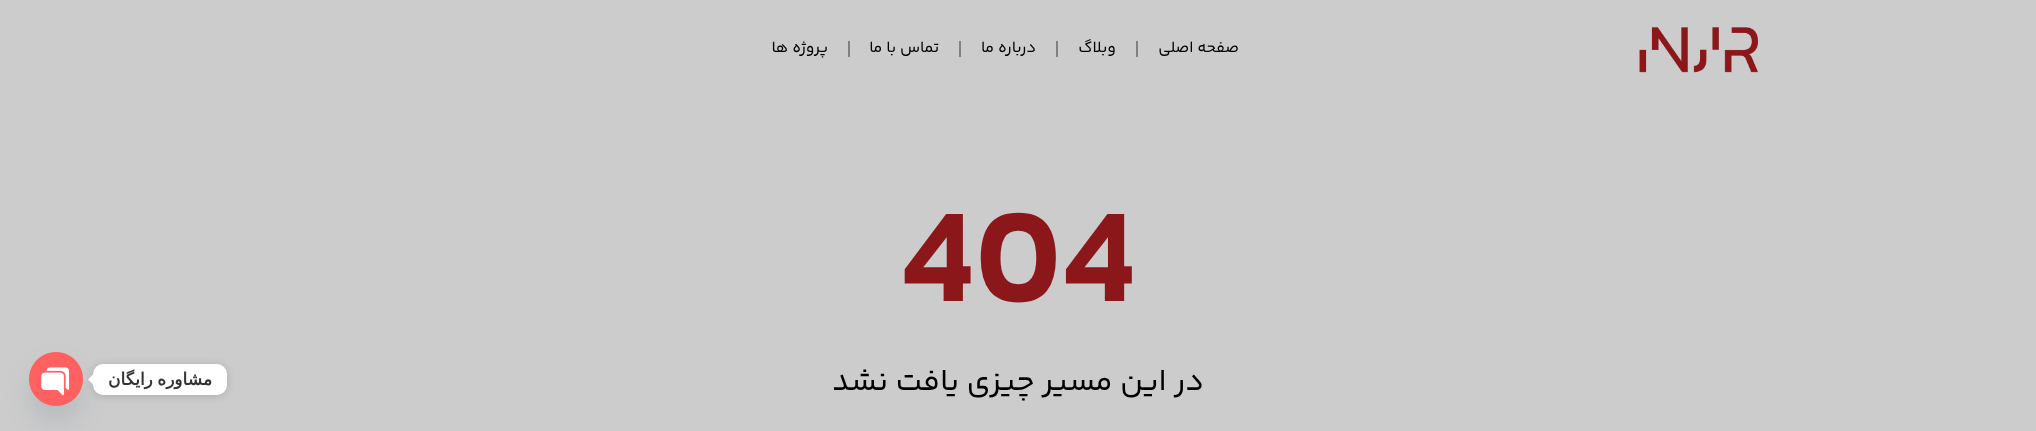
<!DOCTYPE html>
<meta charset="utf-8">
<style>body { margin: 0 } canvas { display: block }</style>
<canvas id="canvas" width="2036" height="431"></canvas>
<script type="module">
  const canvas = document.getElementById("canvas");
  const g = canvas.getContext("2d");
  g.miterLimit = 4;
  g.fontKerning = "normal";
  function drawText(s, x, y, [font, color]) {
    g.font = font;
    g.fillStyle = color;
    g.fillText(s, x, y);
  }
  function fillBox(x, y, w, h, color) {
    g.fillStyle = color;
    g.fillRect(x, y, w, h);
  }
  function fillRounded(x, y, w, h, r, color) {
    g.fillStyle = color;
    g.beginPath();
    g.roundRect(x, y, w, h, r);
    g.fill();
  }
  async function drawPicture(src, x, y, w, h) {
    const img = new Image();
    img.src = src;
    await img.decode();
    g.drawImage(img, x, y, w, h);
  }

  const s1 = ["16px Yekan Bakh", "#000000"];
  const s2 = ["bold 142px Yekan Bakh", "#8B171A"];
  const s3 = ["31px Yekan Bakh", "#000000"];
  const s4 = ["bold 17px DejaVu Sans", "#333333"];

  fillBox(0, 0, 2036, 431, "#CCCCCC");
  await drawPicture("pic1.png", 1639, 27, 119, 46);
  g.direction = "rtl";
  drawText("صفحه اصلی", 1239, 52, s1);
  fillBox(1136, 41, 2, 16, "#808080");
  drawText("وبلاگ", 1116, 52, s1);
  fillBox(1056, 41, 2, 16, "#808080");
  drawText("درباره ما", 1036, 52, s1);
  fillBox(959, 41, 2, 16, "#808080");
  drawText("تماس با ما", 939, 52, s1);
  fillBox(848, 41, 2, 16, "#808080");
  drawText("پروژه ها", 828, 52, s1);
  g.direction = "ltr";
  drawText("404", 901, 301, s2);
  g.direction = "rtl";
  drawText("در این مسیر چیزی یافت نشد", 1204, 390, s3);
  g.fillStyle = "rgba(0, 0, 0, 0.15)";
  g.filter = "blur(4px)";
  g.beginPath();
  g.roundRect(93, 365, 134, 31, 10);
  g.fill();
  g.filter = "none";
  fillRounded(93, 364, 134, 31, 10, "#FFFFFF");
  g.wordSpacing = "-1px";
  drawText("مشاوره رایگان", 212, 385, s4);
  g.fillStyle = "#FFFFFF";
  g.beginPath();
  g.moveTo(93, 374.5);
  g.lineTo(93, 384.5);
  g.lineTo(88, 379.5);
  g.closePath();
  g.fill();
  g.fillStyle = "rgba(73, 104, 126, 0.16)";
  g.filter = "blur(12px)";
  g.beginPath();
  g.roundRect(29, 368, 54, 54, 27);
  g.fill();
  g.filter = "none";
  await drawPicture("pic2.png", 29, 352, 54, 54);
</script>
